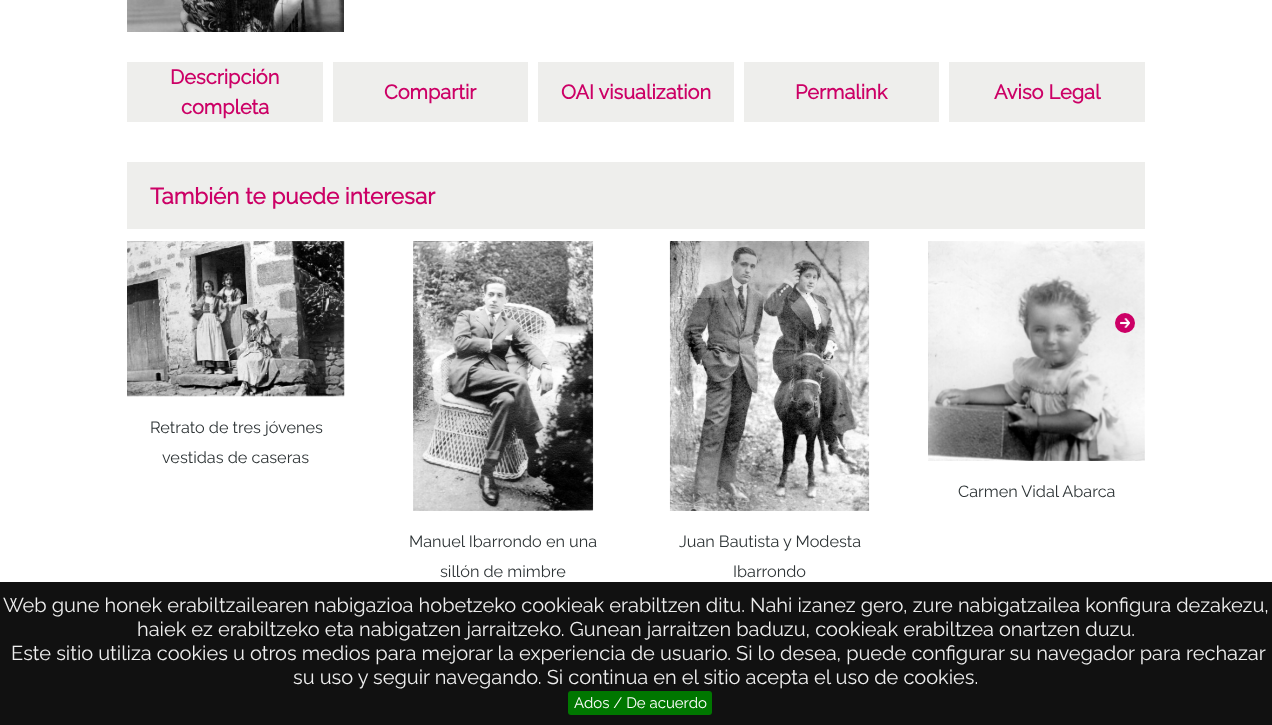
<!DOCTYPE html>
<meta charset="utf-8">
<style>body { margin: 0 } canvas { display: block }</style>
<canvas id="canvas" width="1272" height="725"></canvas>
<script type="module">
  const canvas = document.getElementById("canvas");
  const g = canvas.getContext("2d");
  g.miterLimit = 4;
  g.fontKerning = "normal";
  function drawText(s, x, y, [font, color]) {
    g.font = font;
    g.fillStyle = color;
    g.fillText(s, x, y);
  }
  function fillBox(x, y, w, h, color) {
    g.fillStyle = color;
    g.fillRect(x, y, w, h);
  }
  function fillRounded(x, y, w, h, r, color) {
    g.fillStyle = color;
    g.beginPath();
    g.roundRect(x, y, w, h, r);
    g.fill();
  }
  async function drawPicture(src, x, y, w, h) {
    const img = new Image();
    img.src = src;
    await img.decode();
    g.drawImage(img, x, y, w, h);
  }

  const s1 = ["bold 20px Raleway", "#CC0066"];
  const s2 = ["bold 22.5px Raleway", "#CC0066"];
  const s3 = ["100 16.25px Raleway", "#2E3436"];
  const s4 = ["100 20px Raleway", "#EEEEEE"];
  const s5 = ["100 15px Raleway", "#FFFFFF"];

  fillBox(0, 0, 1272, 725, "#FFFFFF");
  await drawPicture("pic1.png", 127, 0, 217, 32);
  fillBox(127, 62, 196, 60, "#EEEEEC");
  drawText("Descripción", 170, 84, s1);
  drawText("completa", 181, 114, s1);
  fillBox(333, 62, 195, 60, "#EEEEEC");
  drawText("Compartir", 384, 99, s1);
  fillBox(538, 62, 196, 60, "#EEEEEC");
  drawText("OAI visualization", 561, 99, s1);
  fillBox(744, 62, 195, 60, "#EEEEEC");
  drawText("Permalink", 795, 99, s1);
  fillBox(949, 62, 196, 60, "#EEEEEC");
  drawText("Aviso Legal", 994, 99, s1);
  fillBox(127, 162, 1018, 67, "#EEEEEC");
  drawText("También te puede interesar", 150, 204, s2);
  await drawPicture("pic4.png", 928, 241, 217, 220);
  g.beginPath();
  g.arc(1125, 323, 10, 0, Math.PI * 2);
  g.fill();
  await drawPicture("pic2.png", 1120, 318, 10, 10);
  await drawPicture("pic3.png", 127, 241, 218, 156);
  drawText("Retrato de tres jóvenes", 150, 433, s3);
  drawText("vestidas de caseras", 162, 463, s3);
  drawText("Carmen Vidal Abarca", 958, 497, s3);
  await drawPicture("pic5.png", 413, 241, 181, 270);
  drawText("Manuel Ibarrondo en una", 409, 547, s3);
  drawText("sillón de mimbre", 440, 577, s3);
  await drawPicture("pic6.png", 669, 241, 201, 270);
  drawText("Juan Bautista y Modesta", 679, 547, s3);
  drawText("Ibarrondo", 733, 577, s3);
  fillBox(0, 582, 1272, 143, "#111111");
  drawText("Web gune honek erabiltzailearen nabigazioa hobetzeko cookieak erabiltzen ditu. Nahi izanez gero, zure nabigatzailea konfigura dezakezu,", 3, 612, s4);
  drawText("haiek ez erabiltzeko eta nabigatzen jarraitzeko. Gunean jarraitzen baduzu, cookieak erabiltzea onartzen duzu.", 137, 636, s4);
  drawText("Este sitio utiliza cookies u otros medios para mejorar la experiencia de usuario. Si lo desea, puede configurar su navegador para rechazar", 11, 660, s4);
  drawText("su uso y seguir navegando. Si continua en el sitio acepta el uso de cookies.", 293, 684, s4);
  fillRounded(568, 691, 144, 24, 3, "#007700");
  drawText("Ados / De acuerdo", 574, 708, s5);
</script>
